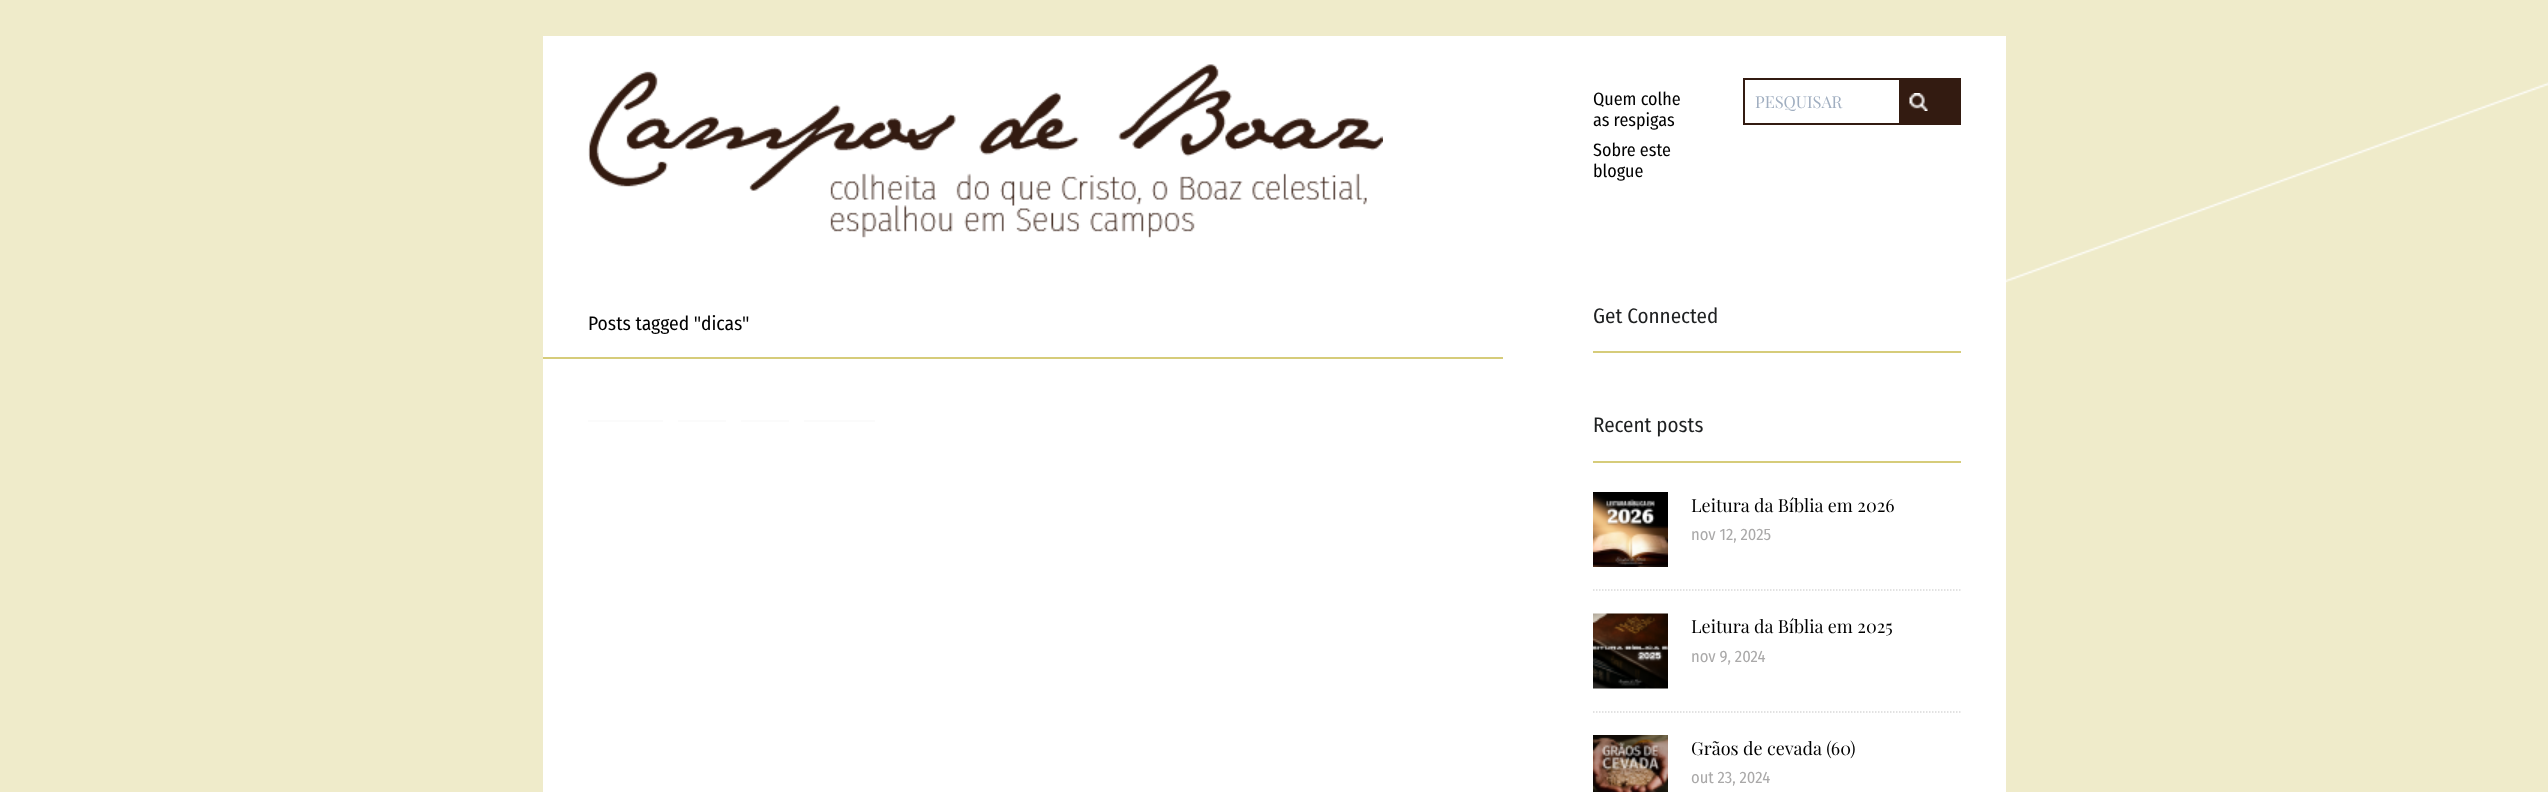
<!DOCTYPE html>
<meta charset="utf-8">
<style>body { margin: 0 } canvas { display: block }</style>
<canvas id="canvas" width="2548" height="792"></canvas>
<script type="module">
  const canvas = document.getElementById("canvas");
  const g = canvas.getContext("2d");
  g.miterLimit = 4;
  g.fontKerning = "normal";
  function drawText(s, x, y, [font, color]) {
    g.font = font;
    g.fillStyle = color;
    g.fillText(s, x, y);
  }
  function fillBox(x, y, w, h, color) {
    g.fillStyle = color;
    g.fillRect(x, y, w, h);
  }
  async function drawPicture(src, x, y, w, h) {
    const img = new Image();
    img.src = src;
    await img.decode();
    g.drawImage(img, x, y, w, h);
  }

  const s1 = ["18px Fira Sans Condensed", "#000000"];
  const s2 = ["16.5px Playfair Display", "#A0AEC0"];
  const s3 = ["19.5px Fira Sans Condensed", "#000000"];
  const s4 = ["21px Fira Sans Condensed", "#1F2122"];
  const s5 = ["18px Playfair Display", "#000000"];
  const s6 = ["16.5px Fira Sans Condensed", "#AAA9A9"];

  fillBox(0, 0, 2548, 792, "#EFEBCA");
  await drawPicture("pic1.png", 2006, 82, 542, 201);
  fillBox(543, 36, 1463, 756, "#FFFFFF");
  await drawPicture("pic2.png", 588, 64, 795, 174);
  drawText("Quem colhe", 1593, 105, s1);
  drawText("as respigas", 1593, 126, s1);
  drawText("Sobre este", 1593, 156, s1);
  drawText("blogue", 1593, 177, s1);
  fillBox(1901, 78, 60, 47, "#331B11");
  g.strokeStyle = "#331B11";
  g.lineWidth = 2;
  g.strokeRect(1744, 79, 156, 45);
  drawText("PESQUISAR", 1755, 108, s2);
  await drawPicture("pic3.png", 1909, 93, 19, 18);
  fillBox(543, 357, 960, 2, "#D6CC7A");
  drawText("Posts tagged \"dicas\"", 588, 330, s3);
  fillBox(588, 420, 75, 2, "#FBFBFB");
  fillBox(678, 420, 48, 2, "#FBFBFB");
  fillBox(741, 420, 48, 2, "#FBFBFB");
  fillBox(804, 420, 71, 2, "#FBFBFB");
  fillBox(1593, 351, 368, 2, "#D6CC7A");
  drawText("Get Connected", 1593, 323, s4);
  fillBox(1593, 461, 368, 2, "#D6CC7A");
  drawText("Recent posts", 1593, 432, s4);
  g.beginPath();
  g.moveTo(1593, 590);
  g.lineTo(1960.5, 590);
  g.strokeStyle = "#D9D9D9";
  g.lineWidth = 1.5;
  g.setLineDash([1.5, 1.5]);
  g.stroke();
  await drawPicture("pic4.png", 1593, 492, 75, 75);
  drawText("Leitura da Bíblia em 2026", 1691, 512, s5);
  drawText("nov 12, 2025", 1691, 540, s6);
  g.beginPath();
  g.moveTo(1593, 712);
  g.lineTo(1960.5, 712);
  g.stroke();
  await drawPicture("pic5.png", 1593, 613, 75, 76);
  drawText("Leitura da Bíblia em 2025", 1691, 633, s5);
  drawText("nov 9, 2024", 1691, 662, s6);
  await drawPicture("pic6.png", 1593, 735, 75, 57);
  drawText("Grãos de cevada (60)", 1691, 755, s5);
  drawText("out 23, 2024", 1691, 783, s6);
</script>
